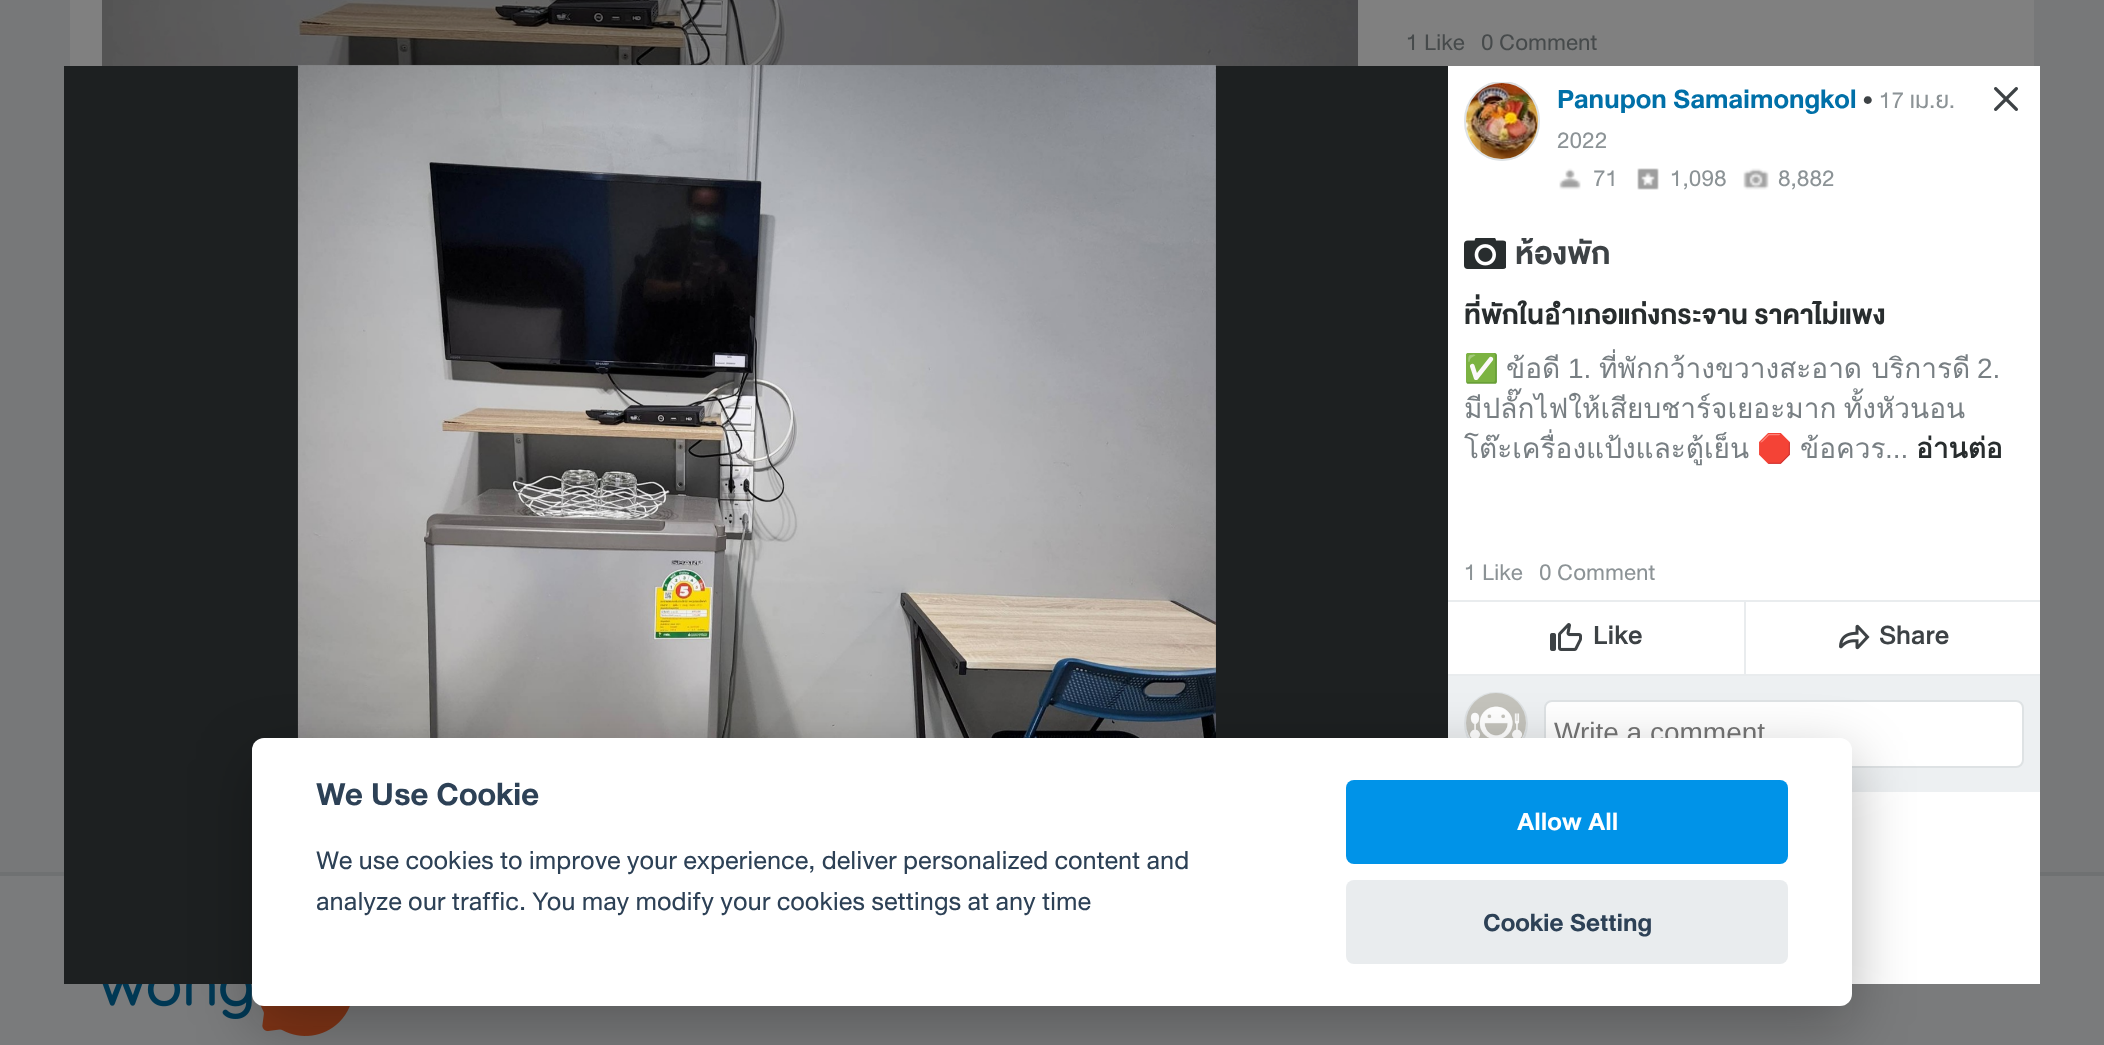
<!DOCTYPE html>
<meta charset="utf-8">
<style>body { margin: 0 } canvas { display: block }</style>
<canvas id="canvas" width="2104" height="1045"></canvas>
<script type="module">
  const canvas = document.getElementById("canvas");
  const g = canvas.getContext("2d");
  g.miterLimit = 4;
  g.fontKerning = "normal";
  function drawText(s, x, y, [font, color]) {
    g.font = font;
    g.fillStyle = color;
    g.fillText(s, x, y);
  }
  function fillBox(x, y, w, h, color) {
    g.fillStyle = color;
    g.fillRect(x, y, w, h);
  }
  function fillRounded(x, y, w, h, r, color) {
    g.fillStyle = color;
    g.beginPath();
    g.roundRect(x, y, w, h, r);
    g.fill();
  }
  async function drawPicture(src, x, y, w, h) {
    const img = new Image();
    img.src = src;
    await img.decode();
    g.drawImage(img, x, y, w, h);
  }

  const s1 = ["24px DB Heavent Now", "#464A4B"];
  const s2 = ["bold 28px DB Heavent Now", "#0070A8"];
  const s3 = ["28px DB Heavent Now", "#3D4245"];
  const s4 = ["24px DB Heavent Now", "#8C9396"];
  const s5 = ["bold 32px DB Heavent Now", "#3D4245"];
  const s6 = ["bold 28px DB Heavent Now", "#282D2E"];
  const s7 = ["28px Noto Color Emoji", "#787F83"];
  const s8 = ["28px Loma", "#787F83"];
  const s9 = ["28px Liberation Sans", "#787F83"];
  const s10 = ["bold 28px Loma", "#282D2E"];
  const s11 = ["500 28px DB Heavent Now", "#3D4245"];
  const s12 = ["28px Liberation Sans", "#757575"];
  const s13 = ["bold 33.5px DB Heavent Now", "#2D4156"];
  const s14 = ["27.2px DB Heavent Now", "#2D4156"];
  const s15 = ["bold 26.25px DB Heavent Now", "#FFFFFF"];
  const s16 = ["bold 26.25px DB Heavent Now", "#2D4156"];

  fillBox(0, 0, 2104, 1045, "#7A7B7C");
  fillBox(0, 0, 2104, 872, "#777879");
  fillBox(70, 0, 1964, 66, "#808080");
  await drawPicture("pic1.png", 102, 0, 1256, 66);
  drawText("1 Like", 1406, 50, s1);
  drawText("0 Comment", 1481, 50, s1);
  fillBox(0, 872, 2104, 4, "#6F7172");
  await drawPicture("pic2.png", 102, 984, 248, 52);
  fillBox(1448, 66, 592, 918, "#FFFFFF");
  fillBox(64, 66, 1384, 918, "#1D2021");
  await drawPicture("pic3.png", 297, 64, 919, 674);
  g.save();
  g.beginPath();
  g.rect(1464, 82, 76, 80);
  g.clip();
  g.fillStyle = "#EDF0F2";
  g.beginPath();
  g.ellipse(1502, 121, 38, 40, 0, 0, Math.PI * 2);
  g.fill();
  g.beginPath();
  g.moveTo(1502, 82);
  g.bezierCurveTo(1522.5, 82, 1539, 99.5, 1539, 121);
  g.bezierCurveTo(1539, 142.5, 1522.5, 160, 1502, 160);
  g.bezierCurveTo(1481.5, 160, 1465, 142.5, 1465, 121);
  g.bezierCurveTo(1465, 99.5, 1481.5, 82, 1502, 82);
  g.closePath();
  g.strokeStyle = "#DEE2E4";
  g.lineWidth = 2;
  g.stroke();
  g.restore();
  await drawPicture("pic4.png", 1466, 83, 72, 76);
  drawText("Panupon Samaimongkol", 1557, 108, s2);
  drawText("•", 1863, 108, s3);
  drawText("17 เม.ย.", 1879, 108, s4);
  drawText("2022", 1557, 148, s4);
  await drawPicture("pic5.png", 1559, 168, 22, 22);
  drawText("71", 1593, 186, s4);
  await drawPicture("pic6.png", 1637, 168, 22, 22);
  drawText("1,098", 1670, 186, s4);
  await drawPicture("pic7.png", 1743, 168, 26, 22);
  drawText("8,882", 1778, 186, s4);
  drawText("ห้องพัก", 1515, 264, s5);
  await drawPicture("pic8.png", 1464, 238, 42, 31);
  drawText("ที่พักในอำเภอแก่งกระจาน ราคาไม่แพง", 1464, 324, s6);
  drawText("✅", 1464, 378, s7);
  drawText("ข้อดี", 1506, 378, s8);
  drawText("1.", 1568, 378, s9);
  drawText("ที่พักกว้างขวางสะอาด บริการดี", 1599, 378, s8);
  drawText("2.", 1977, 378, s9);
  g.wordSpacing = "-2px";
  drawText("มีปลั๊กไฟให้เสียบชาร์จเยอะมาก ทั้งหัวนอน", 1464, 418, s8);
  g.wordSpacing = "0px";
  drawText("โต๊ะเครื่องแป้งและตู้เย็น", 1464, 458, s8);
  drawText("🛑", 1757, 458, s7);
  drawText("ข้อควร", 1800, 458, s8);
  drawText("...", 1885, 458, s9);
  drawText("อ่านต่อ", 1916, 458, s10);
  drawText("1 Like", 1464, 580, s4);
  drawText("0 Comment", 1539, 580, s4);
  fillBox(1448, 600, 592, 76, "#E9ECEE");
  fillBox(1448, 602, 296, 72, "#FFFFFF");
  await drawPicture("pic9.png", 1550, 623, 32, 28);
  drawText("Like", 1593, 644, s11);
  fillBox(1746, 602, 294, 72, "#FFFFFF");
  await drawPicture("pic10.png", 1839, 624, 31, 26);
  drawText("Share", 1879, 644, s11);
  fillBox(1448, 676, 592, 116, "#EDF0F2");
  g.beginPath();
  g.arc(1496, 724, 31, 0, Math.PI * 2);
  g.strokeStyle = "#DEE2E4";
  g.lineWidth = 2;
  g.stroke();
  await drawPicture("pic11.png", 1466, 693, 60, 45);
  g.fillStyle = "#FFFFFF";
  g.beginPath();
  g.roundRect(1545, 701, 478, 66, 7);
  g.fill();
  g.stroke();
  drawText("Write a comment", 1554, 742, s12);
  await drawPicture("pic12.png", 1994, 87, 24, 24);
  g.fillStyle = "rgba(2, 2, 3, 0.28)";
  g.filter = "blur(30px)";
  g.beginPath();
  g.roundRect(252, 758, 1600, 268, 12);
  g.fill();
  g.filter = "none";
  fillRounded(252, 738, 1600, 268, 12, "#FFFFFF");
  drawText("We Use Cookie", 316, 805, s13);
  drawText("We use cookies to improve your experience, deliver personalized content and", 316, 869, s14);
  drawText("analyze our traffic. You may modify your cookies settings at any time", 316, 910, s14);
  fillRounded(1346, 780, 442, 84, 8, "#0093E8");
  drawText("Allow All", 1517, 830, s15);
  fillRounded(1346, 880, 442, 84, 8, "#E9ECEE");
  drawText("Cookie Setting", 1483, 931, s16);
</script>
